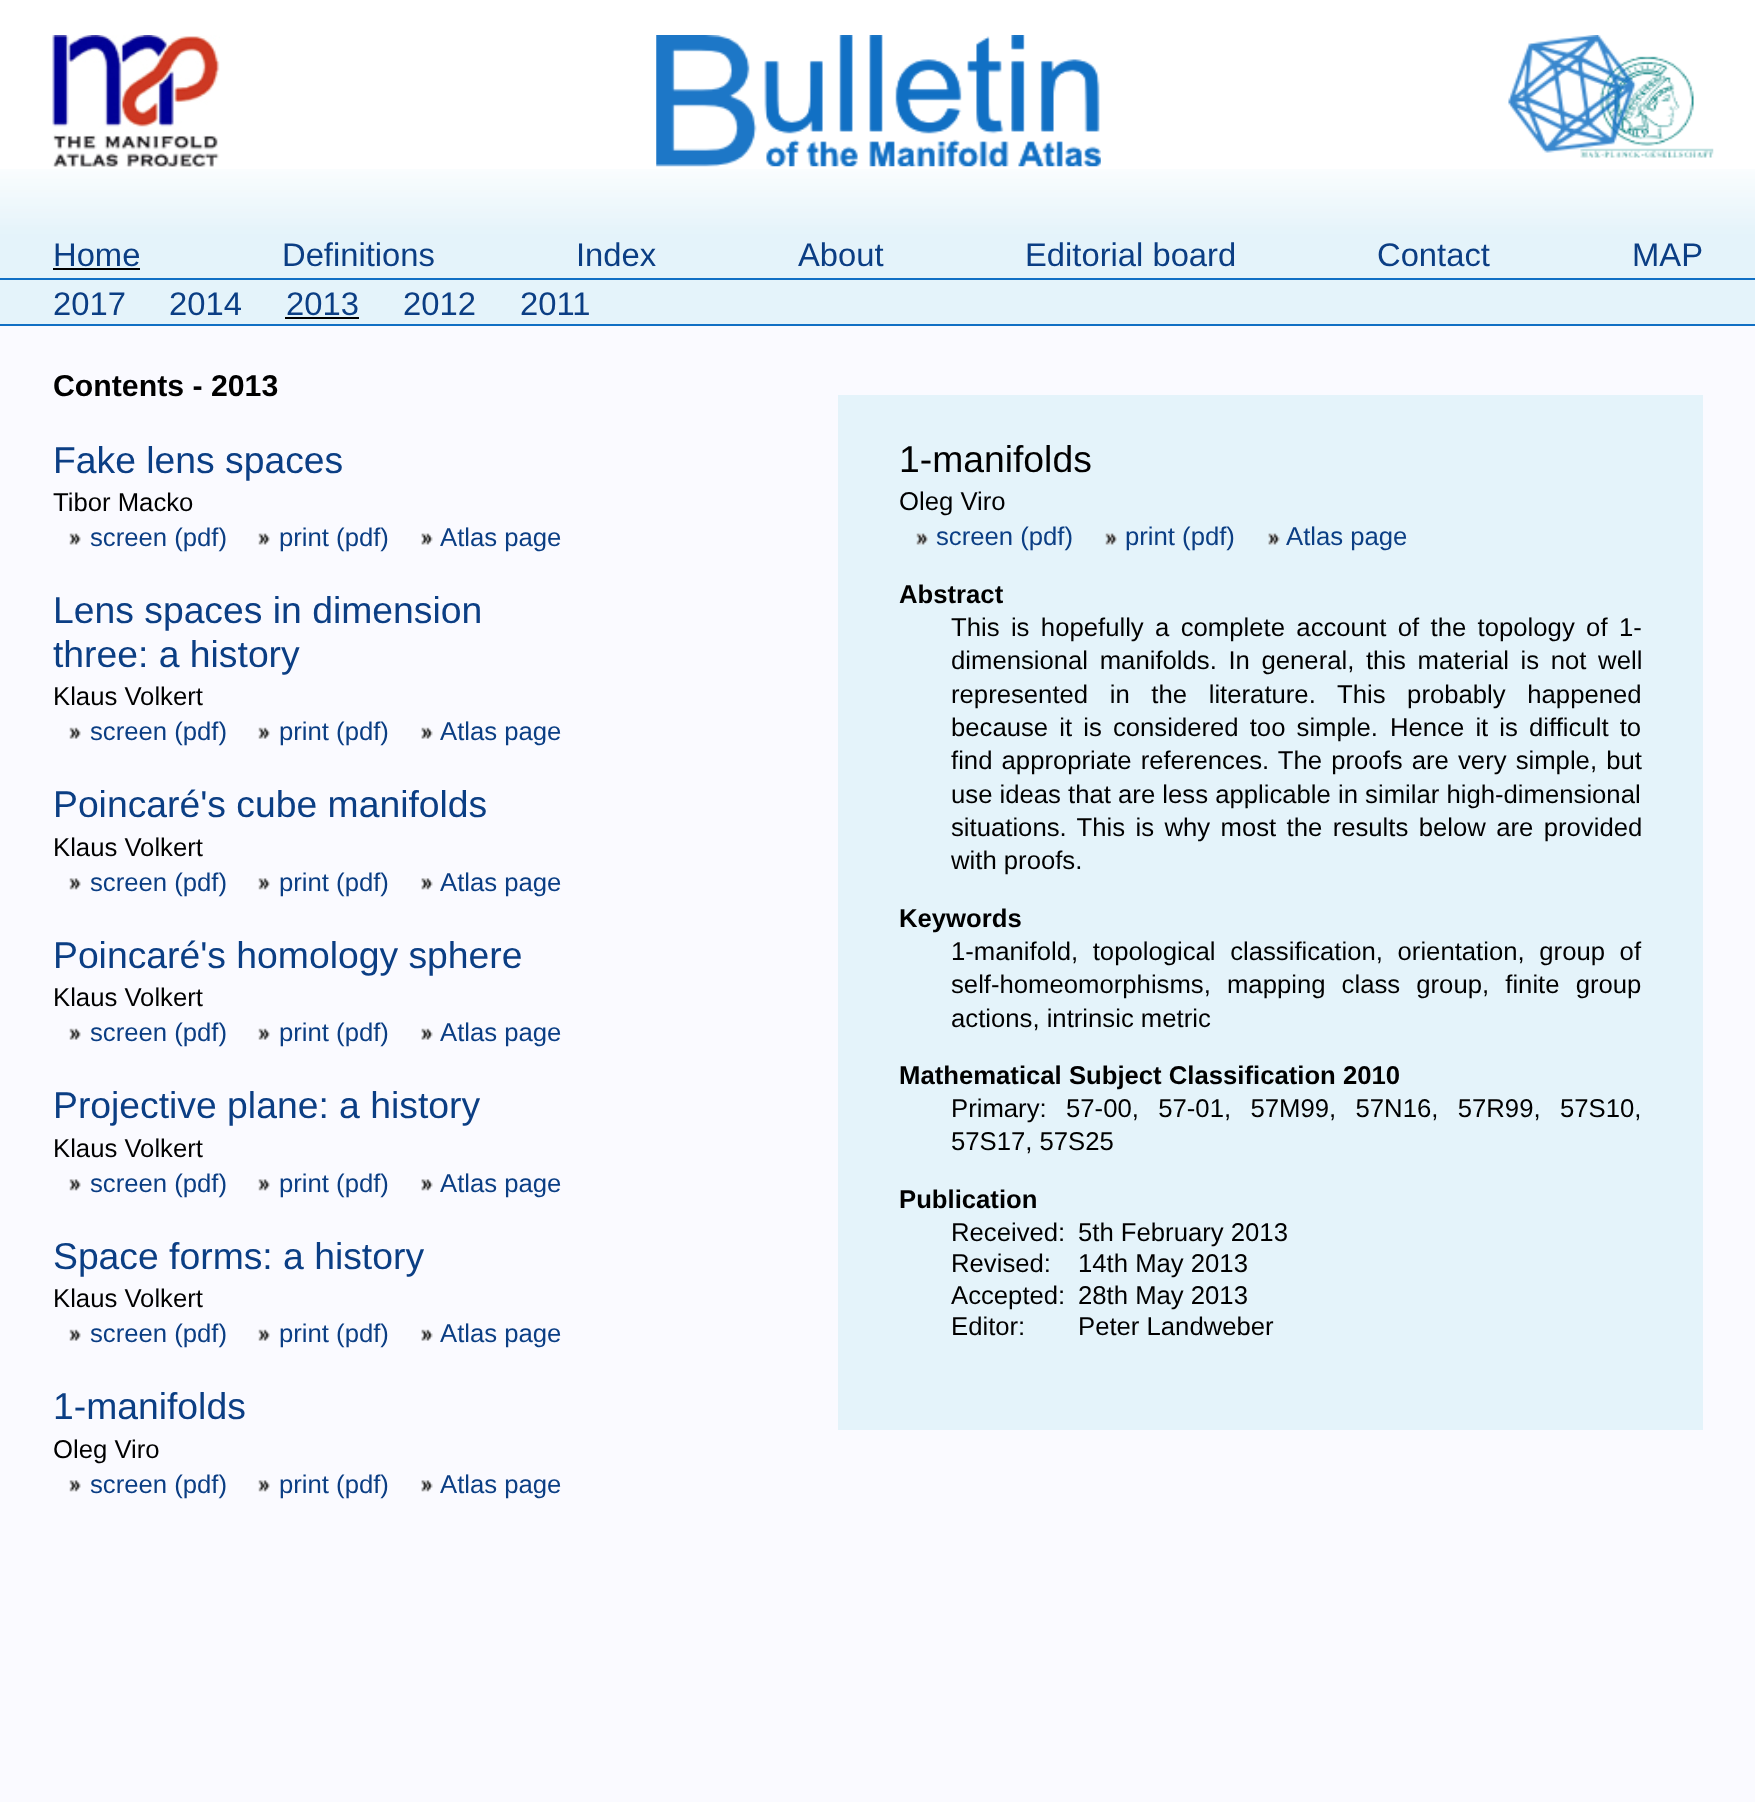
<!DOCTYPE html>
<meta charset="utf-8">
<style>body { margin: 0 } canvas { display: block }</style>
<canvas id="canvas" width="1755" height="1802"></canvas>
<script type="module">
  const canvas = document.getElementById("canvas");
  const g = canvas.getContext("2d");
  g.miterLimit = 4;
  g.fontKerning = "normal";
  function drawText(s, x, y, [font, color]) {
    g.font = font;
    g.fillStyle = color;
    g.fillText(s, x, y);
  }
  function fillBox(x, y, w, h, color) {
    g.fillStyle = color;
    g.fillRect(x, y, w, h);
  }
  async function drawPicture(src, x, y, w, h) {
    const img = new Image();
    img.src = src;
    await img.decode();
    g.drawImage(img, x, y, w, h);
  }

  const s1 = ["32.75px Liberation Sans", "#0B3E84"];
  const s2 = ["bold 30.25px Liberation Sans", "#000000"];
  const s3 = ["37.3px Liberation Sans", "#0B3E84"];
  const s4 = ["25.7px Liberation Sans", "#000000"];
  const s5 = ["25.7px Liberation Sans", "#0B3E84"];
  const s6 = ["37.3px Liberation Sans", "#000000"];
  const s7 = ["bold 25.7px Liberation Sans", "#000000"];

  fillBox(0, 0, 1755, 1802, "#FAFAFF");
  fillBox(0, 0, 1755, 169, "#FFFFFF");
  await drawPicture("pic1.png", 0, 169, 1755, 67);
  await drawPicture("pic2.png", 52, 35, 168, 132);
  await drawPicture("pic3.png", 656, 35, 445, 132);
  await drawPicture("pic4.png", 1508, 35, 206, 123);
  fillBox(0, 236, 1755, 42, "#E4F3FA");
  fillBox(0, 278, 1755, 2, "#106FC4");
  drawText("Home", 53, 266, s1);
  fillBox(53, 268, 87, 2, "#000000");
  drawText("Definitions", 282, 266, s1);
  drawText("Index", 576, 266, s1);
  drawText("About", 798, 266, s1);
  drawText("Editorial board", 1025, 266, s1);
  drawText("Contact", 1377, 266, s1);
  drawText("MAP", 1632, 266, s1);
  fillBox(0, 280, 1755, 44, "#E4F3FA");
  fillBox(0, 324, 1755, 2, "#106FC4");
  drawText("2017", 53, 315, s1);
  drawText("2014", 169, 315, s1);
  drawText("2013", 286, 315, s1);
  fillBox(285, 317, 74, 2, "#000000");
  drawText("2012", 403, 315, s1);
  drawText("2011", 520, 315, s1);
  drawText("Contents - 2013", 53, 396, s2);
  drawText("Fake lens spaces", 53, 473, s3);
  drawText("Tibor Macko", 53, 511, s4);
  await drawPicture("pic5.png", 69, 533, 12, 12);
  drawText("screen (pdf)", 90, 546, s5);
  await drawPicture("pic5.png", 258, 533, 12, 12);
  drawText("print (pdf)", 279, 546, s5);
  await drawPicture("pic6.png", 421, 533, 12, 12);
  drawText("Atlas page", 440, 546, s5);
  drawText("Lens spaces in dimension", 53, 623, s3);
  drawText("three: a history", 53, 667, s3);
  drawText("Klaus Volkert", 53, 705, s4);
  await drawPicture("pic7.png", 69, 727, 12, 12);
  drawText("screen (pdf)", 90, 740, s5);
  await drawPicture("pic7.png", 258, 727, 12, 12);
  drawText("print (pdf)", 279, 740, s5);
  await drawPicture("pic8.png", 421, 727, 12, 12);
  drawText("Atlas page", 440, 740, s5);
  drawText("Poincaré's cube manifolds", 53, 817, s3);
  drawText("Klaus Volkert", 53, 856, s4);
  await drawPicture("pic9.png", 69, 878, 12, 12);
  drawText("screen (pdf)", 90, 891, s5);
  await drawPicture("pic9.png", 258, 878, 12, 12);
  drawText("print (pdf)", 279, 891, s5);
  await drawPicture("pic10.png", 421, 878, 12, 12);
  drawText("Atlas page", 440, 891, s5);
  drawText("Poincaré's homology sphere", 53, 968, s3);
  drawText("Klaus Volkert", 53, 1006, s4);
  await drawPicture("pic7.png", 69, 1028, 12, 12);
  drawText("screen (pdf)", 90, 1041, s5);
  await drawPicture("pic7.png", 258, 1028, 12, 12);
  drawText("print (pdf)", 279, 1041, s5);
  await drawPicture("pic8.png", 421, 1028, 12, 12);
  drawText("Atlas page", 440, 1041, s5);
  drawText("Projective plane: a history", 53, 1118, s3);
  drawText("Klaus Volkert", 53, 1157, s4);
  await drawPicture("pic9.png", 69, 1179, 12, 12);
  drawText("screen (pdf)", 90, 1192, s5);
  await drawPicture("pic9.png", 258, 1179, 12, 12);
  drawText("print (pdf)", 279, 1192, s5);
  await drawPicture("pic10.png", 421, 1179, 12, 12);
  drawText("Atlas page", 440, 1192, s5);
  drawText("Space forms: a history", 53, 1269, s3);
  drawText("Klaus Volkert", 53, 1307, s4);
  await drawPicture("pic7.png", 69, 1329, 12, 12);
  drawText("screen (pdf)", 90, 1342, s5);
  await drawPicture("pic7.png", 258, 1329, 12, 12);
  drawText("print (pdf)", 279, 1342, s5);
  await drawPicture("pic8.png", 421, 1329, 12, 12);
  drawText("Atlas page", 440, 1342, s5);
  drawText("1-manifolds", 53, 1419, s3);
  drawText("Oleg Viro", 53, 1458, s4);
  await drawPicture("pic9.png", 69, 1480, 12, 12);
  drawText("screen (pdf)", 90, 1493, s5);
  await drawPicture("pic9.png", 258, 1480, 12, 12);
  drawText("print (pdf)", 279, 1493, s5);
  await drawPicture("pic10.png", 421, 1480, 12, 12);
  drawText("Atlas page", 440, 1493, s5);
  fillBox(838, 395, 865, 1035, "#E4F3FA");
  drawText("1-manifolds", 899, 472, s6);
  drawText("Oleg Viro", 899, 510, s4);
  await drawPicture("pic11.png", 916, 533, 12, 12);
  drawText("screen (pdf)", 936, 545, s5);
  await drawPicture("pic11.png", 1105, 533, 12, 12);
  drawText("print (pdf)", 1125, 545, s5);
  await drawPicture("pic12.png", 1268, 533, 12, 12);
  drawText("Atlas page", 1286, 545, s5);
  drawText("Abstract", 899, 603, s7);
  g.wordSpacing = "4.25px";
  drawText("This is hopefully a complete account of the topology of 1-", 951, 636, s4);
  g.wordSpacing = "4.5px";
  drawText("dimensional manifolds. In general, this material is not well", 951, 669, s4);
  g.wordSpacing = "14.5px";
  drawText("represented in the literature. This probably happened", 951, 703, s4);
  g.wordSpacing = "4px";
  drawText("because it is considered too simple.", 951, 736, s4);
  drawText("Hence it is difficult to", 1390, 736, s4);
  g.wordSpacing = "2px";
  drawText("find appropriate references. The proofs are very simple, but", 951, 769, s4);
  g.wordSpacing = "0px";
  drawText("use ideas that are less applicable in similar high-dimensional", 951, 803, s4);
  g.wordSpacing = "3.25px";
  drawText("situations. This is why most the results below are provided", 951, 836, s4);
  g.wordSpacing = "0px";
  drawText("with proofs.", 951, 869, s4);
  drawText("Keywords", 899, 927, s7);
  g.wordSpacing = "7.5px";
  drawText("1-manifold, topological classification, orientation, group of", 951, 960, s4);
  g.wordSpacing = "9px";
  drawText("self-homeomorphisms, mapping class group, finite group", 951, 993, s4);
  g.wordSpacing = "0px";
  drawText("actions, intrinsic metric", 951, 1027, s4);
  drawText("Mathematical Subject Classification 2010", 899, 1084, s7);
  g.wordSpacing = "12.25px";
  drawText("Primary: 57-00, 57-01, 57M99, 57N16, 57R99, 57S10,", 951, 1117, s4);
  g.wordSpacing = "0px";
  drawText("57S17, 57S25", 951, 1150, s4);
  drawText("Publication", 899, 1208, s7);
  drawText("Received:", 951, 1241, s4);
  drawText("5th February 2013", 1078, 1241, s4);
  drawText("Revised:", 951, 1272, s4);
  drawText("14th May 2013", 1078, 1272, s4);
  drawText("Accepted:", 951, 1304, s4);
  drawText("28th May 2013", 1078, 1304, s4);
  drawText("Editor:", 951, 1335, s4);
  drawText("Peter Landweber", 1078, 1335, s4);
</script>
